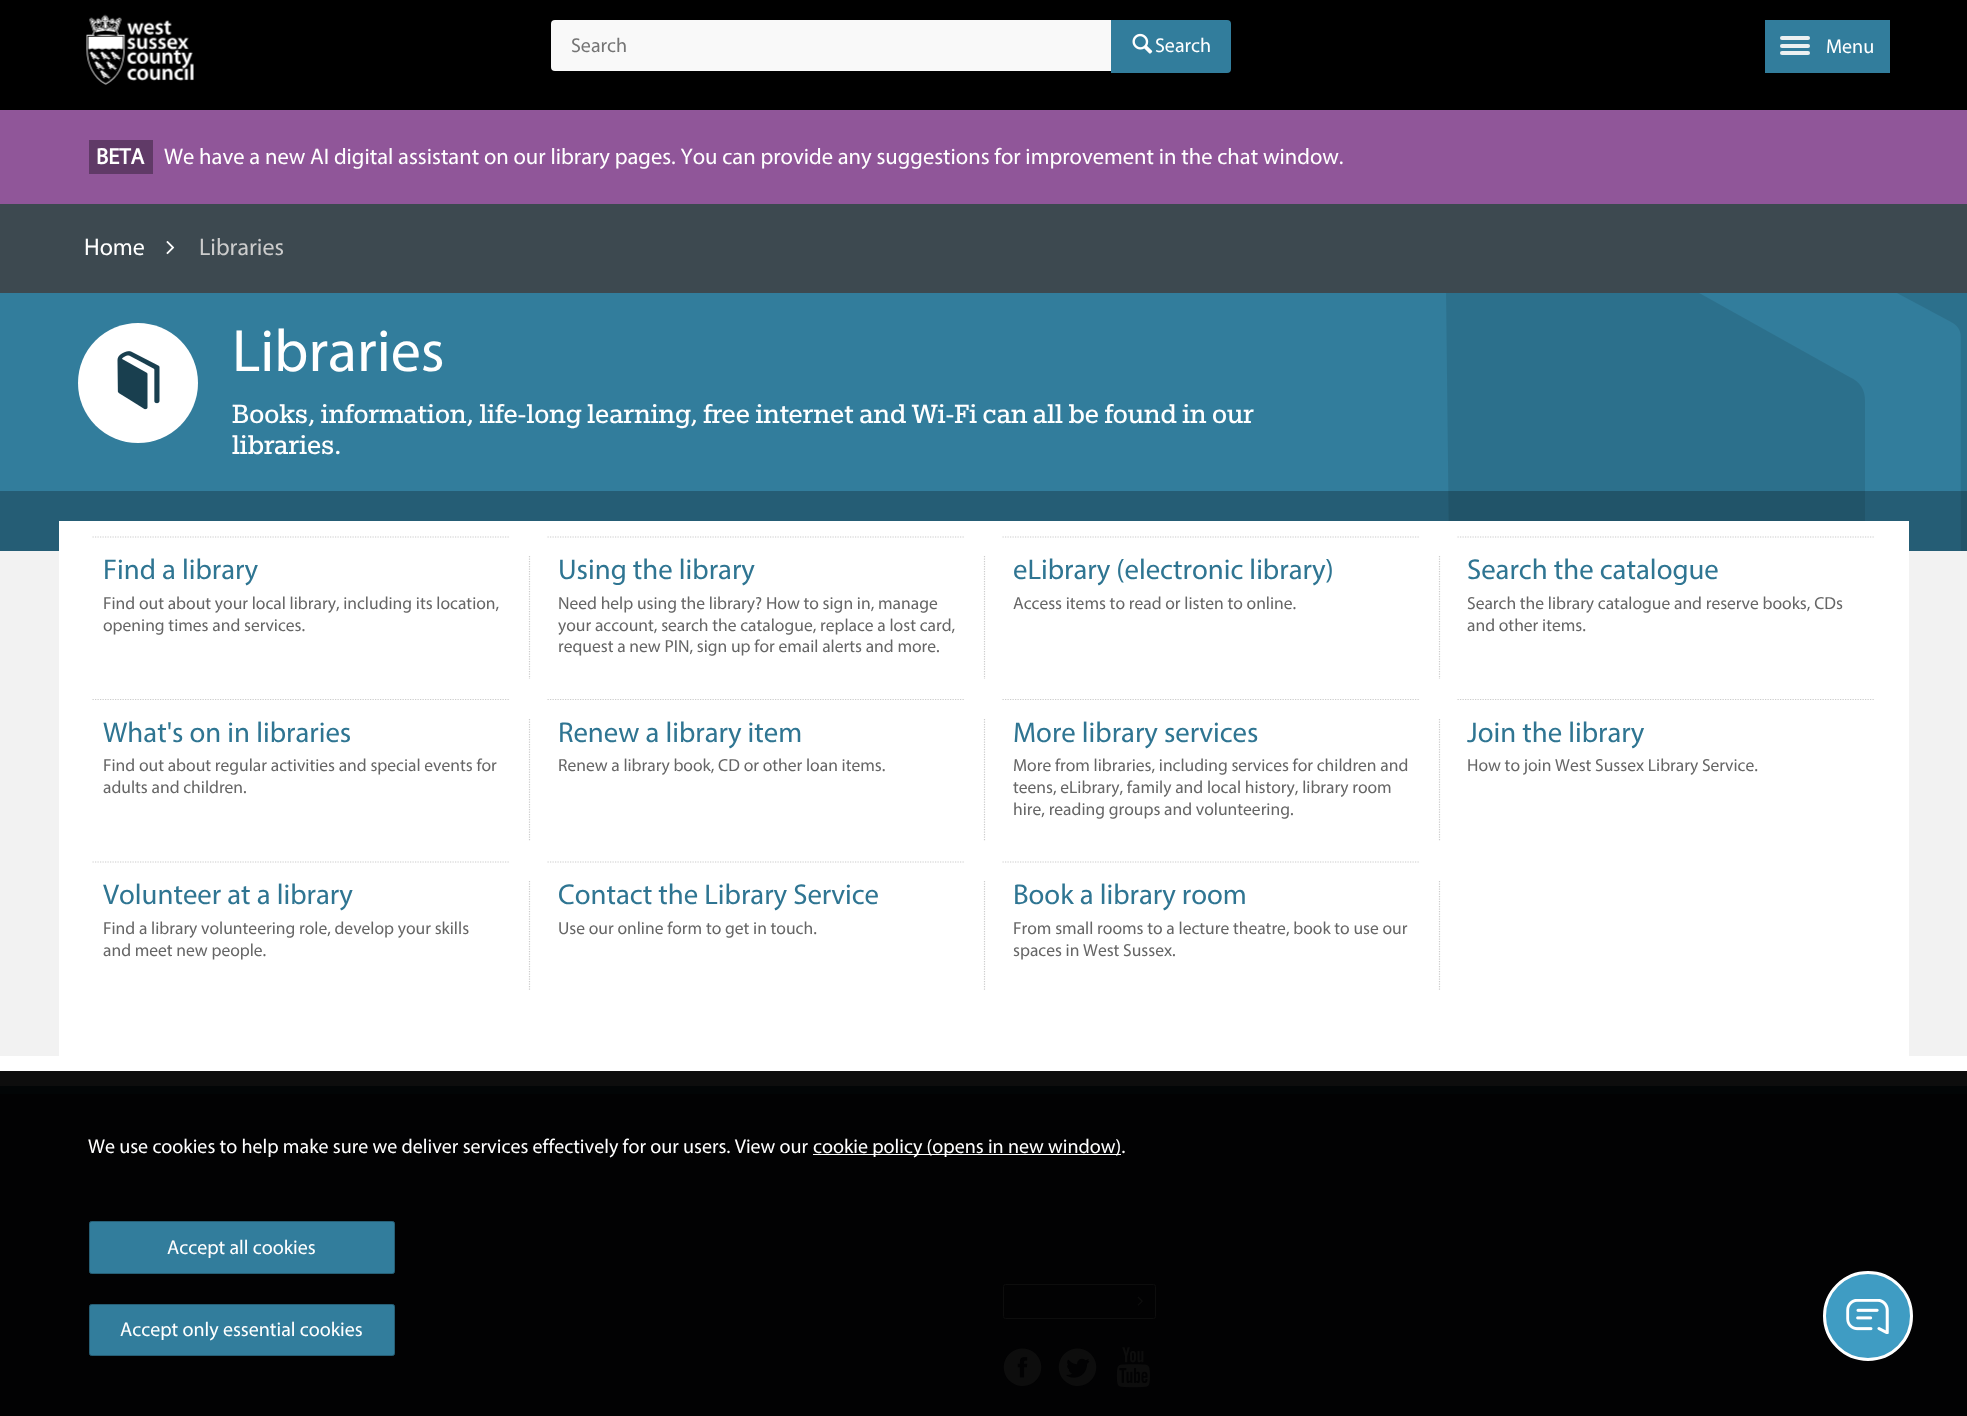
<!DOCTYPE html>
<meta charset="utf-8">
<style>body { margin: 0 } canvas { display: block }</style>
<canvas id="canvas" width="1967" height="1416"></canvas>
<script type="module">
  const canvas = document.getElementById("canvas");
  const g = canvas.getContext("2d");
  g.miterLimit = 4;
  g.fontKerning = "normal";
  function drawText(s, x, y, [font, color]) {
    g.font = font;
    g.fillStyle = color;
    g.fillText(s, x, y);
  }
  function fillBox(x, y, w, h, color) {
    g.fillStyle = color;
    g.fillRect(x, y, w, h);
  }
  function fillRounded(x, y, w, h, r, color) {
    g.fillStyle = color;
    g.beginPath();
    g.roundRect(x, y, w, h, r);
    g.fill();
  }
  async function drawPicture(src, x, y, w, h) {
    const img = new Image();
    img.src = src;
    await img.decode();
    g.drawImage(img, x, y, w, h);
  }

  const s1 = ["20px Myriad", "#757575"];
  const s2 = ["20px Myriad", "#FFFFFF"];
  const s3 = ["bold 22.5px Myriad", "#FFFFFF"];
  const s4 = ["22.5px Myriad", "#FFFFFF"];
  const s5 = ["24px Myriad", "#FFFFFF"];
  const s6 = ["24px Myriad", "#CCCCCC"];
  const s7 = ["60px Myriad", "#FFFFFF"];
  const s8 = ["28.75px 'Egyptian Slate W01'", "#FFFFFF"];
  const s9 = ["28.75px Myriad", "#2F7592"];
  const s10 = ["17.5px Myriad", "#666666"];

  fillBox(0, 0, 1967, 1416, "#FFFFFF");
  fillBox(0, 1071, 1967, 15, "#0D0D0D");
  fillBox(0, 0, 1967, 110, "#000000");
  await drawPicture("pic1.png", 86, 14, 108, 71);
  g.fillStyle = "#F9F9F9";
  g.beginPath();
  g.roundRect(551, 20, 560, 51, [4, 0, 0, 4]);
  g.fill();
  drawText("Search", 571, 52, s1);
  g.fillStyle = "#327D9C";
  g.beginPath();
  g.roundRect(1111, 20, 120, 53, [0, 4, 4, 0]);
  g.fill();
  await drawPicture("pic2.png", 1132, 33, 21, 21);
  drawText("Search", 1155, 52, s2);
  fillBox(1765, 20, 125, 53, "#327D9C");
  fillRounded(1780, 44, 30, 4, 2, "#ECF0F1");
  fillRounded(1780, 36, 30, 4, 2, "#ECF0F1");
  fillRounded(1780, 51, 30, 4, 2, "#ECF0F1");
  drawText("Menu", 1826, 53, s2);
  fillBox(0, 110, 1967, 94, "#905699");
  fillBox(89, 140, 64, 34, "#603A67");
  drawText("BETA", 96, 164, s3);
  drawText("We have a new AI digital assistant on our library pages. You can provide any suggestions for improvement in the chat window.", 164, 164, s4);
  fillBox(0, 551, 1967, 505, "#F2F2F2");
  fillBox(0, 204, 1967, 89, "#3D4950");
  drawText("Home", 84, 255, s5);
  await drawPicture("pic3.png", 166, 241, 9, 14);
  drawText("Libraries", 199, 255, s6);
  fillBox(0, 293, 1967, 258, "#327D9C");
  g.fillStyle = "#FFFFFF";
  g.beginPath();
  g.arc(138, 383, 60, 0, Math.PI * 2);
  g.fill();
  await drawPicture("pic4.png", 117, 351, 43, 59);
  drawText("Libraries", 232, 371, s7);
  drawText("Books, information, life-long learning, free internet and Wi-Fi can all be found in our", 232, 423, s8);
  drawText("libraries.", 232, 454, s8);
  await drawPicture("pic5.png", 1446, 293, 521, 258);
  fillBox(0, 491, 1967, 60, "rgba(0, 0, 0, 0.25)");
  fillBox(59, 521, 1850, 535, "#FFFFFF");
  g.beginPath();
  g.moveTo(92.5, 537);
  g.lineTo(510, 537);
  g.strokeStyle = "#CCCCCC";
  g.lineWidth = 1.2;
  g.setLineDash([1.25, 1.25]);
  g.stroke();
  drawText("Find a library", 103, 579, s9);
  g.beginPath();
  g.moveTo(529.5, 556);
  g.lineTo(529.5, 679);
  g.stroke();
  drawText("Find out about your local library, including its location,", 103, 609, s10);
  drawText("opening times and services.", 103, 631, s10);
  g.beginPath();
  g.moveTo(547.5, 537);
  g.lineTo(965, 537);
  g.stroke();
  drawText("Using the library", 558, 579, s9);
  g.beginPath();
  g.moveTo(984.5, 556);
  g.lineTo(984.5, 679);
  g.stroke();
  drawText("Need help using the library? How to sign in, manage", 558, 609, s10);
  drawText("your account, search the catalogue, replace a lost card,", 558, 631, s10);
  drawText("request a new PIN, sign up for email alerts and more.", 558, 652, s10);
  g.beginPath();
  g.moveTo(1002.5, 537);
  g.lineTo(1420, 537);
  g.stroke();
  drawText("eLibrary (electronic library)", 1013, 579, s9);
  g.beginPath();
  g.moveTo(1439.5, 556);
  g.lineTo(1439.5, 679);
  g.stroke();
  drawText("Access items to read or listen to online.", 1013, 609, s10);
  g.beginPath();
  g.moveTo(1457.5, 537);
  g.lineTo(1875, 537);
  g.stroke();
  drawText("Search the catalogue", 1467, 579, s9);
  drawText("Search the library catalogue and reserve books, CDs", 1467, 609, s10);
  drawText("and other items.", 1467, 631, s10);
  g.beginPath();
  g.moveTo(92.5, 699.5);
  g.lineTo(510, 699.5);
  g.stroke();
  drawText("What's on in libraries", 103, 742, s9);
  g.beginPath();
  g.moveTo(529.5, 719);
  g.lineTo(529.5, 841);
  g.stroke();
  drawText("Find out about regular activities and special events for", 103, 771, s10);
  drawText("adults and children.", 103, 793, s10);
  g.beginPath();
  g.moveTo(547.5, 699.5);
  g.lineTo(965, 699.5);
  g.stroke();
  drawText("Renew a library item", 558, 742, s9);
  g.beginPath();
  g.moveTo(984.5, 719);
  g.lineTo(984.5, 841);
  g.stroke();
  drawText("Renew a library book, CD or other loan items.", 558, 771, s10);
  g.beginPath();
  g.moveTo(1002.5, 699.5);
  g.lineTo(1420, 699.5);
  g.stroke();
  drawText("More library services", 1013, 742, s9);
  g.beginPath();
  g.moveTo(1439.5, 719);
  g.lineTo(1439.5, 841);
  g.stroke();
  drawText("More from libraries, including services for children and", 1013, 771, s10);
  drawText("teens, eLibrary, family and local history, library room", 1013, 793, s10);
  drawText("hire, reading groups and volunteering.", 1013, 815, s10);
  g.beginPath();
  g.moveTo(1457.5, 699.5);
  g.lineTo(1875, 699.5);
  g.stroke();
  drawText("Join the library", 1467, 742, s9);
  drawText("How to join West Sussex Library Service.", 1467, 771, s10);
  g.beginPath();
  g.moveTo(92.5, 862);
  g.lineTo(510, 862);
  g.stroke();
  drawText("Volunteer at a library", 103, 904, s9);
  g.beginPath();
  g.moveTo(529.5, 881);
  g.lineTo(529.5, 991);
  g.stroke();
  drawText("Find a library volunteering role, develop your skills", 103, 934, s10);
  drawText("and meet new people.", 103, 956, s10);
  g.beginPath();
  g.moveTo(547.5, 862);
  g.lineTo(965, 862);
  g.stroke();
  drawText("Contact the Library Service", 558, 904, s9);
  g.beginPath();
  g.moveTo(984.5, 881);
  g.lineTo(984.5, 991);
  g.stroke();
  drawText("Use our online form to get in touch.", 558, 934, s10);
  g.beginPath();
  g.moveTo(1002.5, 862);
  g.lineTo(1420, 862);
  g.stroke();
  drawText("Book a library room", 1013, 904, s9);
  g.beginPath();
  g.moveTo(1439.5, 881);
  g.lineTo(1439.5, 991);
  g.stroke();
  drawText("From small rooms to a lecture theatre, book to use our", 1013, 934, s10);
  drawText("spaces in West Sussex.", 1013, 956, s10);
  fillBox(0, 1094, 1967, 322, "#020203");
  fillBox(0, 1086, 1967, 8, "#020506");
  g.beginPath();
  g.roundRect(1003.5, 1284.5, 152, 34, 2);
  g.strokeStyle = "#0D0D0D";
  g.lineWidth = 1;
  g.setLineDash([]);
  g.stroke();
  await drawPicture("pic6.png", 1137, 1296, 6, 10);
  await drawPicture("pic7.png", 1003, 1348, 39, 38);
  await drawPicture("pic8.png", 1058, 1348, 39, 38);
  await drawPicture("pic9.png", 1116, 1347, 34, 41);
  drawText("We use cookies to help make sure we deliver services effectively for our users. View our", 88, 1153, s2);
  fillBox(813, 1154, 308, 1, "#FFFFFF");
  drawText("cookie policy (opens in new window).", 813, 1153, s2);
  g.fillStyle = "#327D9C";
  g.beginPath();
  g.roundRect(89.5, 1221.5, 305, 52, 2);
  g.fill();
  g.strokeStyle = "#265E75";
  g.stroke();
  drawText("Accept all cookies", 167, 1254, s2);
  g.fillStyle = "#327D9C";
  g.beginPath();
  g.roundRect(89.5, 1304.5, 305, 51, 2);
  g.fill();
  g.stroke();
  drawText("Accept only essential cookies", 120, 1336, s2);
  g.fillStyle = "#3F9CC3";
  g.beginPath();
  g.arc(1868, 1316, 43.5, 0, Math.PI * 2);
  g.fill();
  g.strokeStyle = "#FFFFFF";
  g.lineWidth = 3;
  g.stroke();
  await drawPicture("pic10.png", 1846, 1299, 43, 35);
</script>
